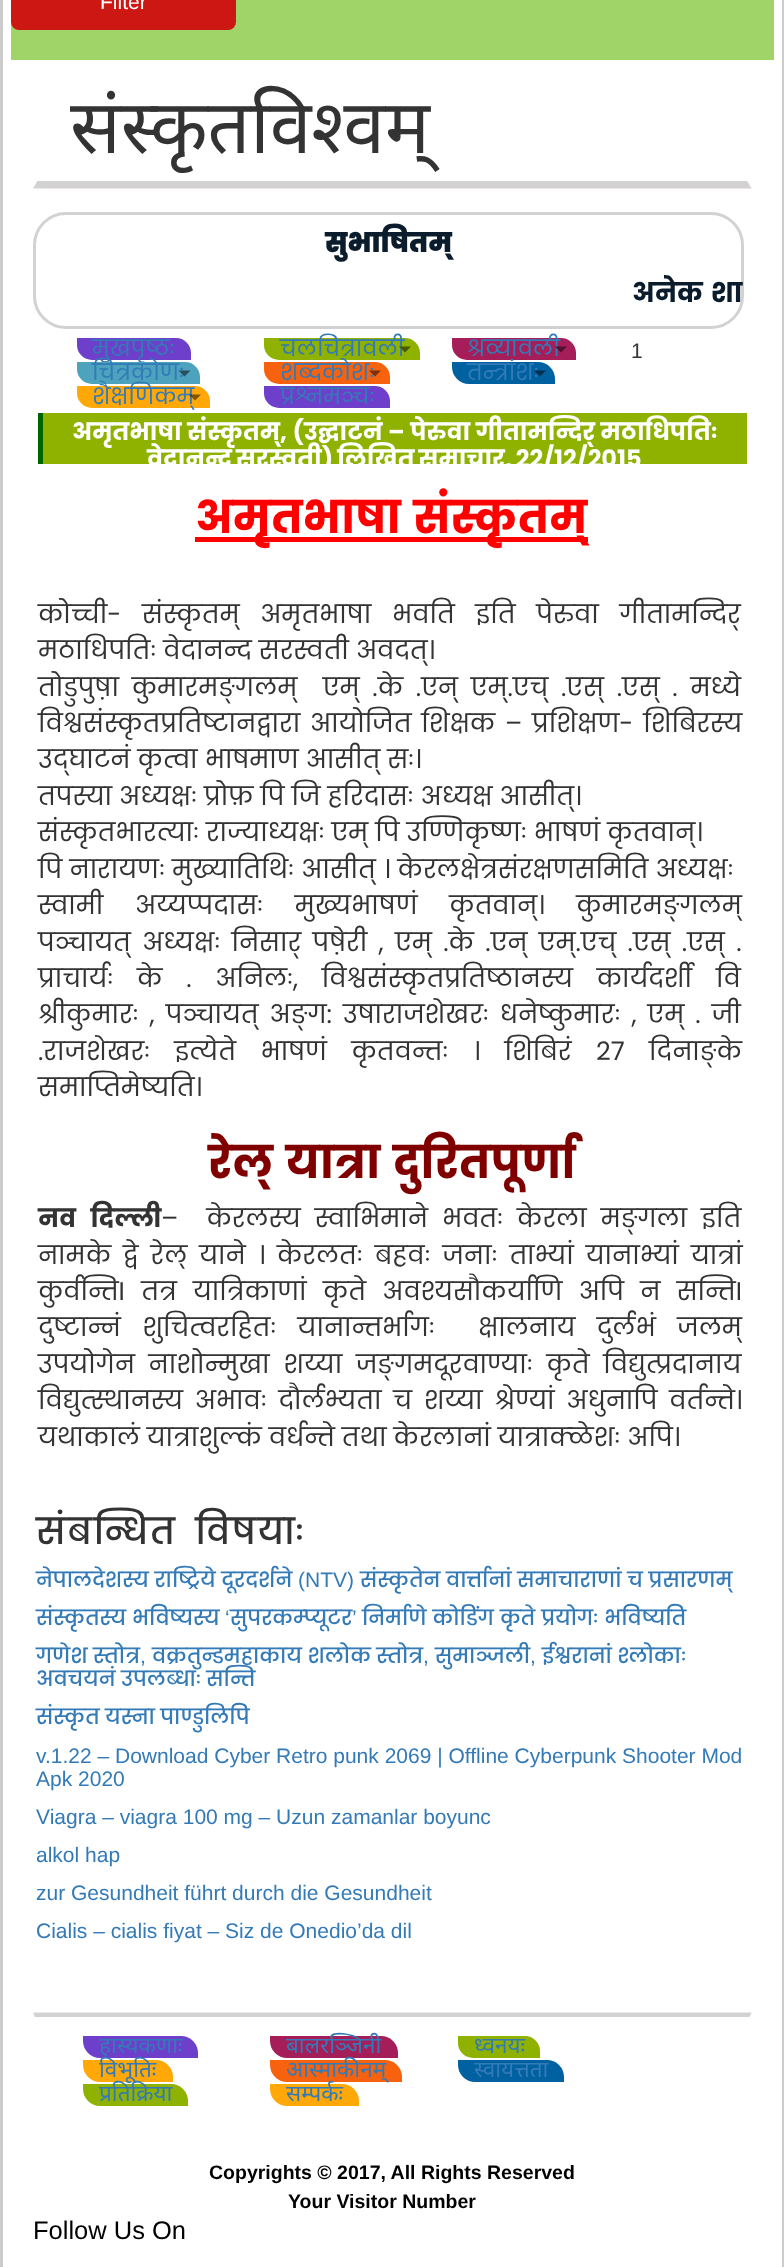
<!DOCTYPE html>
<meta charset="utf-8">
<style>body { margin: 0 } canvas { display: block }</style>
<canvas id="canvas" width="784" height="2267"></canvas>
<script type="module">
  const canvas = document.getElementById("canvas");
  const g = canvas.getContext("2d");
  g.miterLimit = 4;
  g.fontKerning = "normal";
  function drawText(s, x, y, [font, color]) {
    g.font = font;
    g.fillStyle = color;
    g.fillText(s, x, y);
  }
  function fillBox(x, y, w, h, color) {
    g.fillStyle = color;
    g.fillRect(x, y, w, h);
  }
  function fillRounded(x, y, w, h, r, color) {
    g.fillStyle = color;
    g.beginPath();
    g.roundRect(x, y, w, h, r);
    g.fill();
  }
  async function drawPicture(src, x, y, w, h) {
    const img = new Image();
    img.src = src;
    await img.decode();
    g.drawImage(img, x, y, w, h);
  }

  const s1 = ["21px Liberation Sans", "#FFFFFF"];
  const s2 = ["75px Noto Sans", "#333333"];
  const s3 = ["900 27px Poppins", "#0B1D2C"];
  const s4 = ["bold 27px Poppins", "#0B1D2C"];
  const s5 = ["22.5px Poppins", "#337AB7"];
  const s6 = ["21px Liberation Sans", "#333333"];
  const s7 = ["bold 24px Poppins", "#FFFFFF"];
  const s8 = ["bold 45px Poppins", "#FF0000"];
  const s9 = ["25.5px Poppins", "#333333"];
  const s10 = ["bold 45px Poppins", "#800000"];
  const s11 = ["bold 25.5px Poppins", "#333333"];
  const s12 = ["500 36px Poppins", "#333333"];
  const s13 = ["500 21px Poppins", "#337AB7"];
  const s14 = ["21px Liberation Sans", "#337AB7"];
  const s15 = ["22.5px Noto Sans", "#337AB7"];
  const s16 = ["bold 19.5px Liberation Sans", "#000000"];
  const s17 = ["25.5px Liberation Sans", "#000000"];

  fillBox(0, 0, 784, 2267, "#FFFFFF");
  fillBox(782, 0, 2, 2267, "#CCCCCC");
  fillBox(0, 0, 3, 2267, "#CCCCCC");
  fillBox(11, 0, 763, 60, "#A0D468");
  fillRounded(11, -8, 225, 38, 8, "#CC1713");
  drawText("Filter", 100, 9, s1);
  drawText("संस्कृतविश्वम्", 70, 153, s2);
  await drawPicture("pic1.png", 33, 181, 719, 8);
  g.beginPath();
  g.roundRect(34.5, 213.5, 708, 114, 31.5);
  g.strokeStyle = "#D3D1D1";
  g.lineWidth = 3;
  g.stroke();
  drawText("सुभाषितम्", 325, 252, s3);
  g.wordSpacing = "2px";
  drawText("अनेक शा", 632, 302, s4);
  g.fillStyle = "#6E3FCB";
  g.beginPath();
  g.roundRect(77, 338, 114, 22, [0, 15, 0, 15]);
  g.fill();
  g.wordSpacing = "0px";
  drawText("मुखपृष्ठः", 92, 356, s5);
  g.fillStyle = "#8FB200";
  g.beginPath();
  g.roundRect(264, 338, 156, 22, [0, 15, 0, 15]);
  g.fill();
  drawText("चलचित्रावली", 280, 356, s5);
  g.fillStyle = "#485900";
  g.beginPath();
  g.moveTo(399, 346.5);
  g.lineTo(411, 346.5);
  g.lineTo(405, 352.5);
  g.closePath();
  g.fill();
  g.fillStyle = "#A51E59";
  g.beginPath();
  g.roundRect(452, 338, 124, 22, [0, 15, 0, 15]);
  g.fill();
  drawText("श्रव्यावली", 467, 356, s5);
  g.fillStyle = "#530F2D";
  g.beginPath();
  g.moveTo(555, 346.5);
  g.lineTo(567, 346.5);
  g.lineTo(561, 352.5);
  g.closePath();
  g.fill();
  drawText("1", 631, 358, s6);
  g.fillStyle = "#4DA2BD";
  g.beginPath();
  g.roundRect(77, 362, 123, 22, [0, 15, 0, 15]);
  g.fill();
  drawText("चित्रकोणः", 92, 380, s5);
  g.fillStyle = "#27515F";
  g.beginPath();
  g.moveTo(178.5, 370.5);
  g.lineTo(190.5, 370.5);
  g.lineTo(184.5, 376.5);
  g.closePath();
  g.fill();
  g.fillStyle = "#F7620F";
  g.beginPath();
  g.roundRect(264, 362, 126, 22, [0, 15, 0, 15]);
  g.fill();
  drawText("शब्दकोशः", 280, 380, s5);
  g.fillStyle = "#7C3108";
  g.beginPath();
  g.moveTo(369, 370.5);
  g.lineTo(381, 370.5);
  g.lineTo(375, 376.5);
  g.closePath();
  g.fill();
  g.fillStyle = "#0061A1";
  g.beginPath();
  g.roundRect(452, 362, 103, 22, [0, 17, 0, 17]);
  g.fill();
  drawText("तन्त्रांशः", 467, 380, s5);
  g.fillStyle = "#003151";
  g.beginPath();
  g.moveTo(534, 370.5);
  g.lineTo(546, 370.5);
  g.lineTo(540, 376.5);
  g.closePath();
  g.fill();
  g.fillStyle = "#FFA808";
  g.beginPath();
  g.roundRect(77, 386, 133, 22, [0, 15, 0, 15]);
  g.fill();
  drawText("शैक्षणिकम्", 92, 404, s5);
  g.fillStyle = "rgba(0, 0, 0, 0.5)";
  g.beginPath();
  g.moveTo(189, 394.5);
  g.lineTo(201, 394.5);
  g.lineTo(195, 400.5);
  g.closePath();
  g.fill();
  g.fillStyle = "#6E3FCB";
  g.beginPath();
  g.roundRect(264, 386, 126, 22, [0, 15, 0, 15]);
  g.fill();
  drawText("प्रश्नमञ्चः", 280, 404, s5);
  fillBox(43, 413, 704, 51, "#8FB200");
  fillBox(38, 413, 5, 51, "#006400");
  g.wordSpacing = "0.5px";
  drawText("अमृतभाषा संस्कृतम्, (उद्घाटनं – पेरुवा गीतामन्दिर् मठाधिपतिः", 72, 440, s7);
  g.wordSpacing = "-1px";
  drawText("वेदानन्द सरस्वती) लिखित समाचार, 22/12/2015", 147, 467, s7);
  fillBox(195, 537, 393, 5, "#FF0000");
  g.wordSpacing = "3px";
  drawText("अमृतभाषा संस्कृतम्", 195, 533, s8);
  g.wordSpacing = "14px";
  drawText("कोच्ची- संस्कृतम् अमृतभाषा भवति इति पेरुवा गीतामन्दिर्", 38, 623, s9);
  g.wordSpacing = "0.25px";
  drawText("मठाधिपतिः वेदानन्द सरस्वती अवदत्।", 38, 659, s9);
  g.wordSpacing = "6px";
  drawText("तोडुपुष़ा कुमारमङ्गलम्  एम् .के .एन् एम्.एच् .एस् .एस् . मध्ये", 38, 696, s9);
  g.wordSpacing = "3px";
  drawText("विश्वसंस्कृतप्रतिष्टानद्वारा आयोजित शिक्षक – प्रशिक्षण- शिबिरस्य", 38, 732, s9);
  g.wordSpacing = "0.25px";
  drawText("उद्‌घाटनं कृत्वा भाषमाण आसीत् सः।", 38, 768, s9);
  drawText("तपस्या अध्यक्षः प्रोफ़ पि जि हरिदासः अध्यक्ष आसीत्।", 38, 805, s9);
  drawText("संस्कृतभारत्याः राज्याध्यक्षः एम् पि उण्णिकृष्णः भाषणं कृतवान्।", 38, 841, s9);
  g.wordSpacing = "0.5px";
  drawText("पि नारायणः मुख्यातिथिः आसीत् । केरलक्षेत्रसंरक्षणसमिति अध्यक्षः", 38, 878, s9);
  g.wordSpacing = "25px";
  drawText("स्वामी अय्यप्पदासः मुख्यभाषणं कृतवान्। कुमारमङ्गलम्", 38, 914, s9);
  g.wordSpacing = "4.6px";
  drawText("पञ्चायत् अध्यक्षः निसार् पष़ेरी , एम् .के .एन् एम्.एच् .एस् .एस् .", 38, 951, s9);
  g.wordSpacing = "17px";
  drawText("प्राचार्यः के . अनिलः, विश्वसंस्कृतप्रतिष्ठानस्य कार्यदर्शी वि", 38, 987, s9);
  g.wordSpacing = "4.25px";
  drawText("श्रीकुमारः , पञ्चायत् अङ्ग: उषाराजशेखरः धनेष्कुमारः , एम् . जी", 38, 1023, s9);
  g.wordSpacing = "17.75px";
  drawText(".राजशेखरः इत्येते भाषणं कृतवन्तः । शिबिरं २७ दिनाङ्के", 38, 1060, s9);
  g.wordSpacing = "0px";
  drawText("समाप्तिमेष्यति।", 38, 1096, s9);
  g.wordSpacing = "3px";
  drawText("रेल् यात्रा दुरितपूर्णा", 208, 1178, s10);
  g.wordSpacing = "9px";
  drawText("नव दिल्ली", 38, 1227, s11);
  g.wordSpacing = "7.25px";
  drawText("–  केरलस्य स्वाभिमाने भवतः केरला मङ्गला इति", 161, 1227, s9);
  g.wordSpacing = "5.25px";
  drawText("नामके द्वे रेल् याने । केरलतः बहवः जनाः ताभ्यां यानाभ्यां यात्रां", 38, 1264, s9);
  g.wordSpacing = "9.5px";
  drawText("कुर्वन्तिI तत्र यात्रिकाणां कृते अवश्यसौकर्याणि अपि न सन्तिI", 38, 1300, s9);
  g.wordSpacing = "14.75px";
  drawText("दुष्टान्नं शुचित्वरहितः यानान्तर्भागः  क्षालनाय दुर्लभं जलम्", 38, 1336, s9);
  g.wordSpacing = "7px";
  drawText("उपयोगेन नाशोन्मुखा शय्या जङ्‌गमदूरवाण्याः कृते विद्युत्प्रदानाय", 38, 1373, s9);
  g.wordSpacing = "5px";
  drawText("विद्युत्स्थानस्य अभावः दौर्लभ्यता च शय्या श्रेण्यां अधुनापि वर्तन्ते।", 38, 1409, s9);
  g.wordSpacing = "0.25px";
  drawText("यथाकालं यात्राशुल्कं वर्धन्ते तथा केरलानां यात्राक्ळेशः अपि।", 38, 1446, s9);
  g.letterSpacing = "1.5px";
  g.wordSpacing = "8px";
  drawText("संबन्धित विषयाः", 36, 1544, s12);
  g.letterSpacing = "0px";
  g.wordSpacing = "0.25px";
  drawText("नेपालदेशस्य राष्ट्रिये दूरदर्शने", 36, 1587, s13);
  g.wordSpacing = "0px";
  drawText("(NTV)", 298, 1587, s14);
  g.wordSpacing = "0.25px";
  drawText("संस्कृतेन वार्त्तानां समाचाराणां च प्रसारणम्", 360, 1587, s13);
  g.wordSpacing = "0.5px";
  drawText("संस्कृतस्य भविष्यस्य", 36, 1625, s13);
  g.wordSpacing = "0px";
  drawText("‘", 225, 1625, s14);
  drawText("सुपरकम्प्यूटर", 230, 1625, s13);
  g.wordSpacing = "0.5px";
  drawText("निर्माणे कोडिंग कृते प्रयोगः भविष्यति", 362, 1625, s13);
  g.wordSpacing = "0px";
  drawText("’", 352, 1625, s14);
  drawText("गणेश स्तोत्र", 36, 1663, s13);
  drawText(",", 140, 1663, s14);
  drawText("वक्रतुन्डमहाकाय शलोक स्तोत्र", 152, 1663, s13);
  drawText(",", 423, 1663, s14);
  drawText("सुमाञ्जली", 435, 1663, s13);
  drawText("ईश्वरानां श्लोकाः", 542, 1663, s13);
  drawText(",", 530, 1663, s14);
  drawText("अवचयनं उपलब्धाः सन्ति", 36, 1686, s13);
  drawText("संस्कृत यस्ना पाण्डुलिपि", 36, 1724, s13);
  drawText("v.1.22 – Download Cyber Retro punk 2069 | Offline Cyberpunk Shooter Mod", 36, 1763, s14);
  drawText("Apk 2020", 36, 1786, s14);
  drawText("Viagra – viagra 100 mg – Uzun zamanlar boyunc", 36, 1824, s14);
  drawText("alkol hap", 36, 1862, s14);
  drawText("zur Gesundheit führt durch die Gesundheit", 36, 1900, s14);
  drawText("Cialis – cialis fiyat – Siz de Onedio’da dil", 36, 1938, s14);
  await drawPicture("pic2.png", 33, 2012, 719, 5);
  g.fillStyle = "#6E3FCB";
  g.beginPath();
  g.roundRect(83, 2036, 115, 22, [0, 17, 0, 17]);
  g.fill();
  drawText("हास्यकणाः", 99, 2053, s15);
  g.fillStyle = "#A51E59";
  g.beginPath();
  g.roundRect(270, 2036, 128, 22, [0, 17, 0, 17]);
  g.fill();
  drawText("बालरञ्जिनी", 286, 2053, s15);
  g.fillStyle = "#8FB200";
  g.beginPath();
  g.roundRect(458, 2036, 82, 22, [0, 15, 0, 15]);
  g.fill();
  drawText("ध्वनयः", 474, 2053, s15);
  g.fillStyle = "#FFA808";
  g.beginPath();
  g.roundRect(83, 2060, 90, 22, [0, 17, 0, 17]);
  g.fill();
  drawText("विभूतिः", 99, 2077, s15);
  g.fillStyle = "#F7620F";
  g.beginPath();
  g.roundRect(270, 2060, 132, 22, [0, 17, 0, 17]);
  g.fill();
  drawText("आस्माकीनम्", 286, 2077, s15);
  g.fillStyle = "#0061A1";
  g.beginPath();
  g.roundRect(458, 2060, 106, 22, [0, 17, 0, 17]);
  g.fill();
  drawText("स्वायत्तता", 474, 2077, s15);
  g.fillStyle = "#8FB200";
  g.beginPath();
  g.roundRect(83, 2084, 105, 22, [0, 17, 0, 17]);
  g.fill();
  drawText("प्रतिक्रिया", 99, 2101, s15);
  g.fillStyle = "#FFA808";
  g.beginPath();
  g.roundRect(270, 2084, 89, 22, [0, 17, 0, 17]);
  g.fill();
  drawText("सम्पर्कः", 286, 2101, s15);
  drawText("Copyrights © 2017, All Rights Reserved", 209, 2179, s16);
  drawText("Your Visitor Number", 288, 2208, s16);
  drawText("Follow Us On", 33, 2239, s17);
</script>
